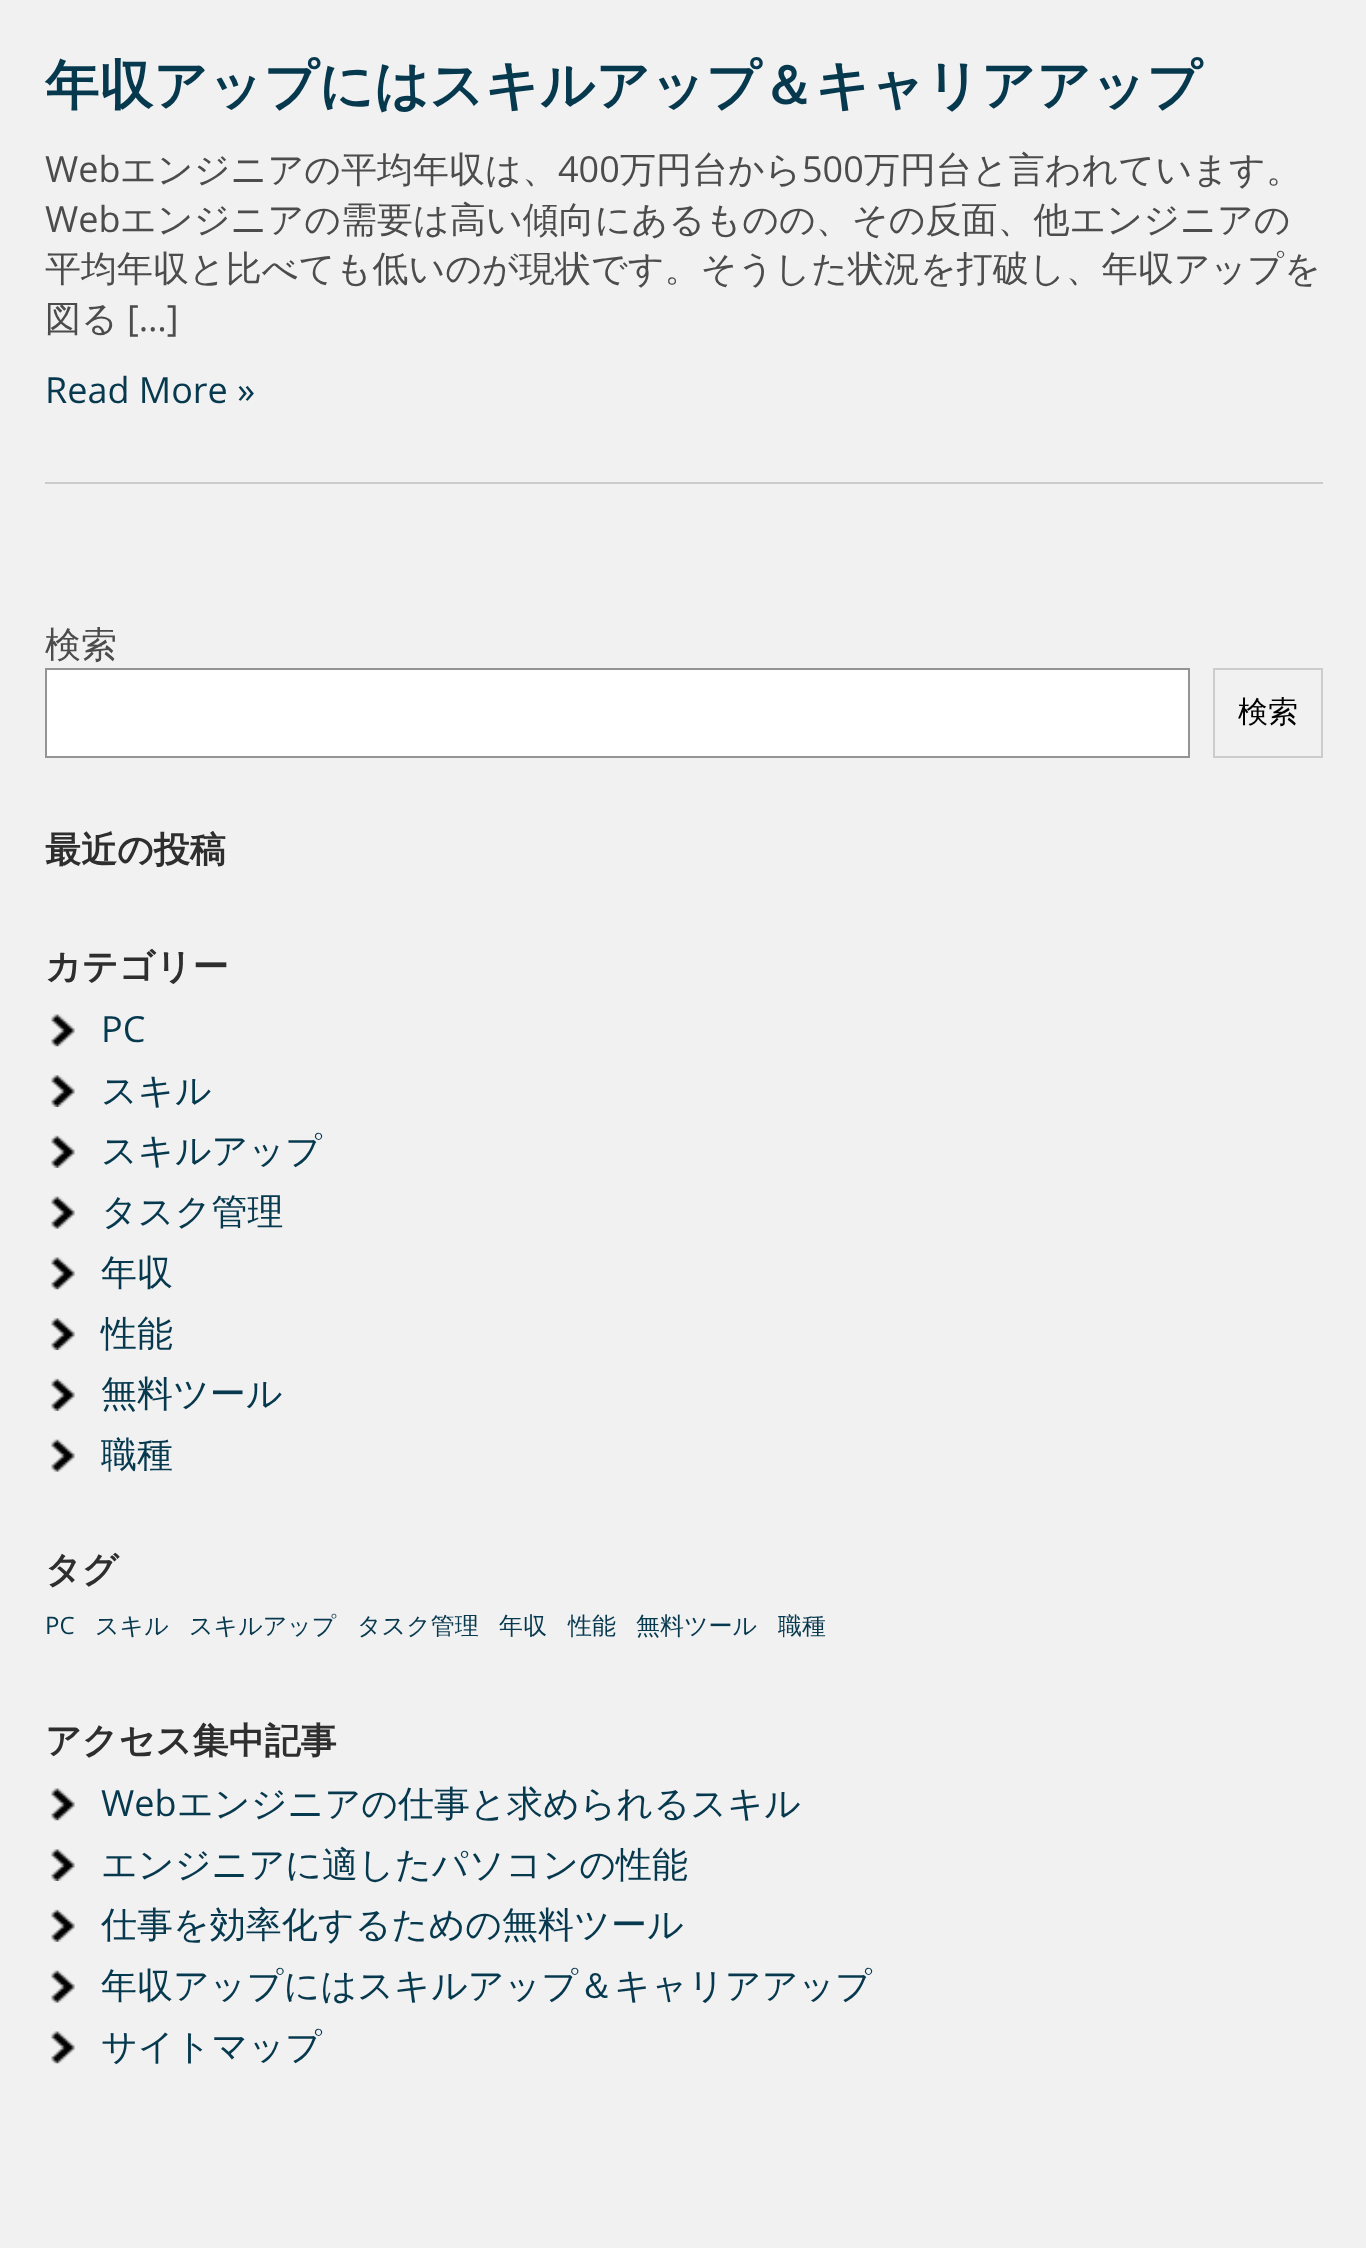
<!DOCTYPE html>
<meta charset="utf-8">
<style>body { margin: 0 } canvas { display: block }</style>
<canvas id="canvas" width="1366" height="2248"></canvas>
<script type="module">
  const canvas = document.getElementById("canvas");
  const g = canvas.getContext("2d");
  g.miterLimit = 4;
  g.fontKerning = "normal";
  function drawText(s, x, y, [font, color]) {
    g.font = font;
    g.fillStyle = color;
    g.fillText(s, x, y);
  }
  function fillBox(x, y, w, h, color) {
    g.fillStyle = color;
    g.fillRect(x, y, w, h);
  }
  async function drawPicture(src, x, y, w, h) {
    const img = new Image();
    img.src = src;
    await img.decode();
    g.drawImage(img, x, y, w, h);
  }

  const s1 = ["bold 54px WenQuanYi Zen Hei", "#06384E"];
  const s2 = ["36px Open Sans", "#4C4C4C"];
  const s3 = ["500 36px WenQuanYi Zen Hei", "#4C4C4C"];
  const s4 = ["36px Open Sans", "#06384E"];
  const s5 = ["500 30px WenQuanYi Zen Hei", "#000000"];
  const s6 = ["bold 36px WenQuanYi Zen Hei", "#2E2E2E"];
  const s7 = ["500 36px WenQuanYi Zen Hei", "#06384E"];
  const s8 = ["24px Open Sans", "#06384E"];
  const s9 = ["500 24px WenQuanYi Zen Hei", "#06384E"];

  fillBox(0, 0, 1366, 2248, "#F1F1F1");
  fillBox(45, 482, 1278, 2, "#CCCCCC");
  drawText("年収アップにはスキルアップ＆キャリアアップ", 45, 104, s1);
  drawText("Web", 45, 182, s2);
  drawText("エンジニアの平均年収は、", 120, 182, s3);
  drawText("400", 558, 182, s2);
  drawText("万円台から", 620, 182, s3);
  drawText("500", 802, 182, s2);
  drawText("万円台と言われています。", 864, 182, s3);
  drawText("Web", 45, 232, s2);
  drawText("エンジニアの需要は高い傾向にあるものの、その反面、他エンジニアの", 120, 232, s3);
  drawText("平均年収と比べても低いのが現状です。そうした状況を打破し、年収アップを", 45, 281, s3);
  drawText("図る", 45, 331, s3);
  drawText("[…]", 127, 331, s2);
  drawText("Read More »", 45, 403, s4);
  drawText("検索", 45, 657, s3);
  g.fillStyle = "#FFFFFF";
  g.beginPath();
  g.rect(46, 669, 1143, 88);
  g.fill();
  g.strokeStyle = "#949494";
  g.lineWidth = 2;
  g.stroke();
  g.strokeStyle = "#CCCCCC";
  g.strokeRect(1214, 669, 108, 88);
  drawText("検索", 1238, 722, s5);
  drawText("最近の投稿", 45, 862, s6);
  drawText("カテゴリー", 45, 979, s6);
  await drawPicture("pic1.png", 51, 1014, 24, 33);
  drawText("PC", 101, 1042, s4);
  await drawPicture("pic2.png", 51, 1075, 24, 32);
  drawText("スキル", 101, 1103, s7);
  await drawPicture("pic3.png", 51, 1135, 24, 33);
  drawText("スキルアップ", 101, 1163, s7);
  await drawPicture("pic4.png", 51, 1196, 24, 33);
  drawText("タスク管理", 101, 1224, s7);
  await drawPicture("pic1.png", 51, 1257, 24, 33);
  drawText("年収", 101, 1285, s7);
  await drawPicture("pic2.png", 51, 1318, 24, 32);
  drawText("性能", 101, 1346, s7);
  await drawPicture("pic3.png", 51, 1378, 24, 33);
  drawText("無料ツール", 101, 1406, s7);
  await drawPicture("pic4.png", 51, 1439, 24, 33);
  drawText("職種", 101, 1467, s7);
  drawText("タグ", 45, 1582, s6);
  drawText("PC", 45, 1634, s8);
  drawText("スキル", 95, 1634, s9);
  drawText("スキルアップ", 189, 1634, s9);
  drawText("タスク管理", 357, 1634, s9);
  drawText("年収", 499, 1634, s9);
  drawText("性能", 568, 1634, s9);
  drawText("無料ツール", 636, 1634, s9);
  drawText("職種", 778, 1634, s9);
  drawText("アクセス集中記事", 45, 1753, s6);
  await drawPicture("pic1.png", 51, 1788, 24, 33);
  drawText("Web", 101, 1816, s4);
  drawText("エンジニアの仕事と求められるスキル", 177, 1816, s7);
  await drawPicture("pic2.png", 51, 1849, 24, 32);
  drawText("エンジニアに適したパソコンの性能", 101, 1877, s7);
  await drawPicture("pic3.png", 51, 1909, 24, 33);
  drawText("仕事を効率化するための無料ツール", 101, 1937, s7);
  await drawPicture("pic4.png", 51, 1970, 24, 33);
  drawText("年収アップにはスキルアップ＆キャリアアップ", 101, 1998, s7);
  await drawPicture("pic1.png", 51, 2031, 24, 33);
  drawText("サイトマップ", 101, 2059, s7);
</script>
